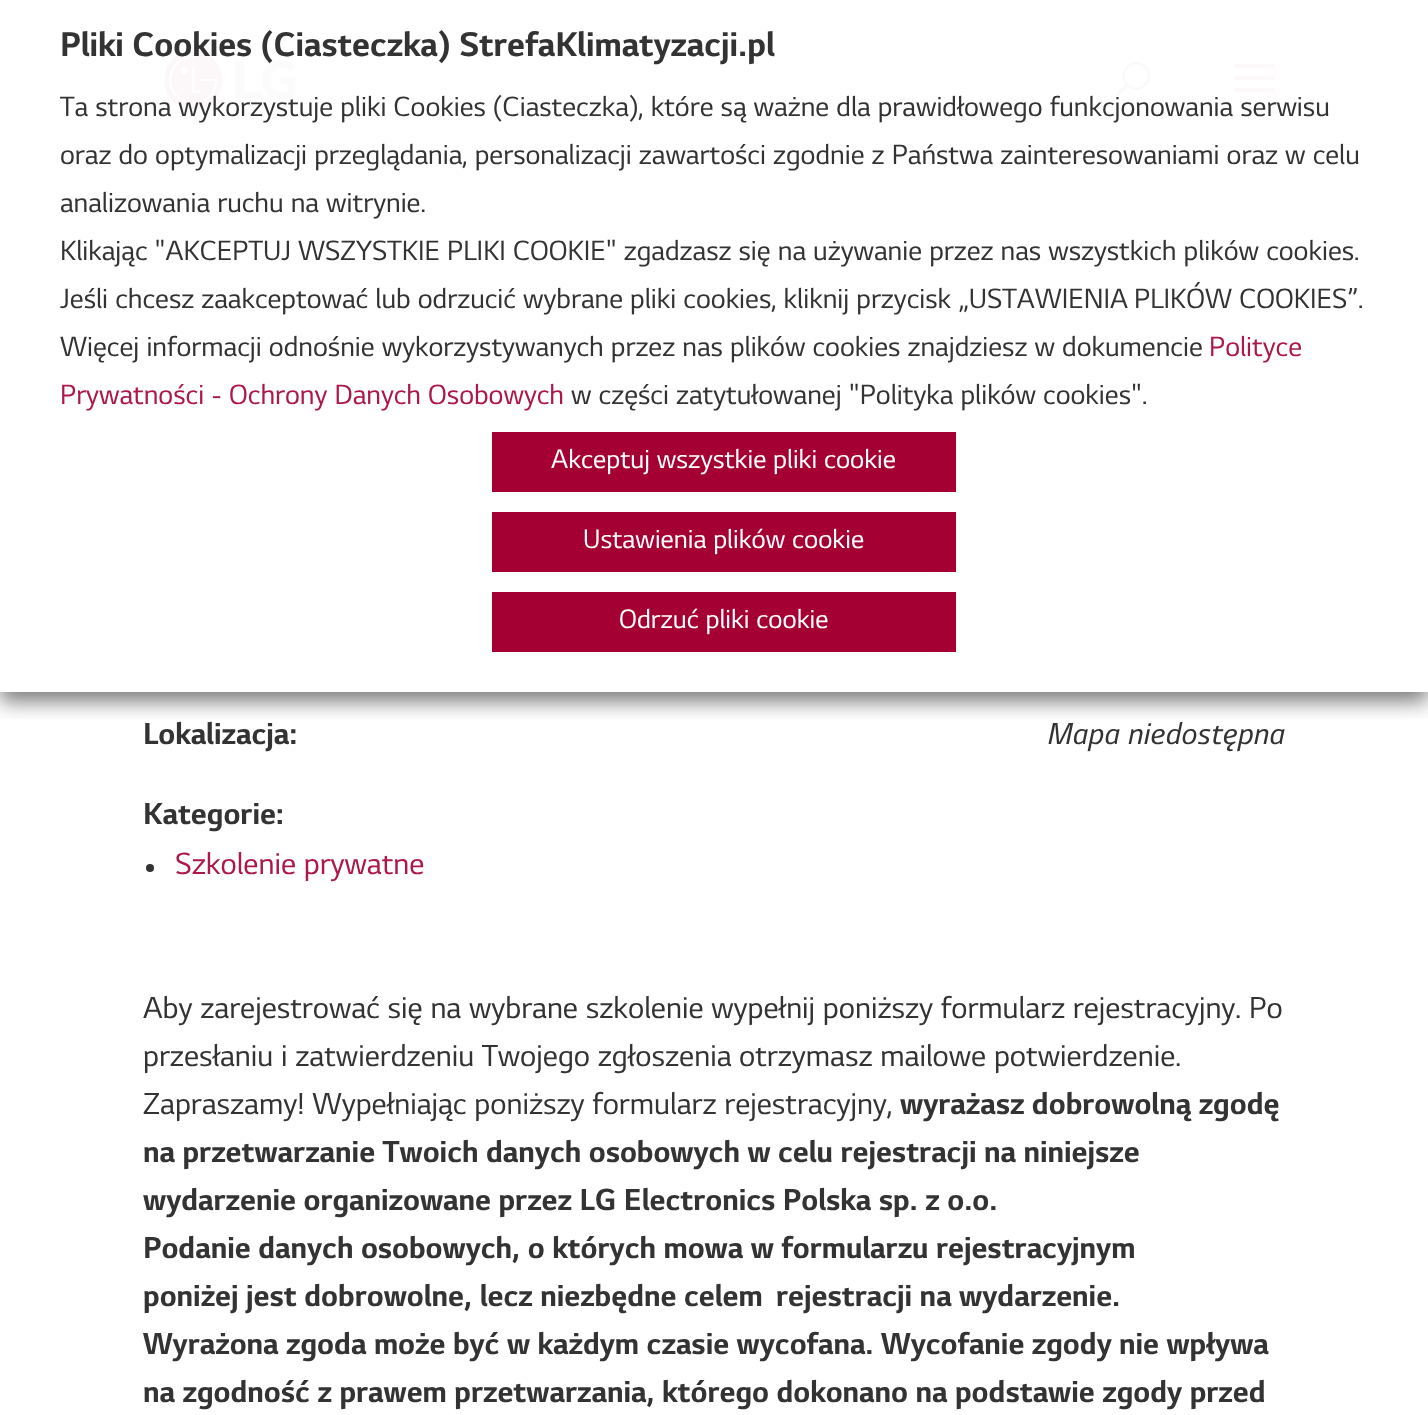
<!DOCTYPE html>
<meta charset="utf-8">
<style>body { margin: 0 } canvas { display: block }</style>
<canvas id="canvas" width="1428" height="1415"></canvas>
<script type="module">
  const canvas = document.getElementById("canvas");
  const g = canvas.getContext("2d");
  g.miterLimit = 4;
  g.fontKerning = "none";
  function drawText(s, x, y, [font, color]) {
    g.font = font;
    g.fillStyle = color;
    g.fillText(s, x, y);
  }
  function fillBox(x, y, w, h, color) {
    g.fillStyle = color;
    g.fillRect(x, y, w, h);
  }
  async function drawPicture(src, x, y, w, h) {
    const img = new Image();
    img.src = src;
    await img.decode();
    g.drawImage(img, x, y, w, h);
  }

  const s1 = ["bold 36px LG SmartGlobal", "#333333"];
  const s2 = ["29.35px LG SmartGlobal", "#333333"];
  const s3 = ["29.35px LG SmartGlobal", "#AC1847"];
  const s4 = ["28px LG SmartGlobal", "#FFFFFF"];
  const s5 = ["bold 32px LG SmartGlobal", "#333333"];
  const s6 = ["italic 32px LG SmartGlobal", "#333333"];
  const s7 = ["32px LG SmartGlobal", "#AC1847"];
  const s8 = ["32px LG SmartGlobal", "#333333"];

  fillBox(0, 0, 1428, 1415, "#FFFFFF");
  await drawPicture("pic1.png", 164, 50, 132, 60);
  await drawPicture("pic2.png", 1115, 62, 35, 35);
  await drawPicture("pic3.png", 1234, 64, 40, 28);
  g.save();
  g.beginPath();
  g.rect(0, 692, 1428, 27);
  g.clip();
  g.fillStyle = "rgba(0, 0, 0, 0.5)";
  g.filter = "blur(10px)";
  g.beginPath();
  g.rect(0, 10, 1428, 692);
  g.fill();
  g.filter = "none";
  g.restore();
  drawText("Pliki Cookies (Ciasteczka) StrefaKlimatyzacji.pl", 60, 56, s1);
  drawText("Ta strona wykorzystuje pliki Cookies (Ciasteczka), które są ważne dla prawidłowego funkcjonowania serwisu", 60, 116, s2);
  drawText("oraz do optymalizacji przeglądania, personalizacji zawartości zgodnie z Państwa zainteresowaniami oraz w celu", 60, 164, s2);
  drawText("analizowania ruchu na witrynie.", 60, 212, s2);
  drawText("Klikając \"AKCEPTUJ WSZYSTKIE PLIKI COOKIE\" zgadzasz się na używanie przez nas wszystkich plików cookies.", 60, 260, s2);
  drawText("Jeśli chcesz zaakceptować lub odrzucić wybrane pliki cookies, kliknij przycisk „USTAWIENIA", 60, 308, s2);
  drawText("PLIKÓW COOKIES”.", 1134, 308, s2);
  drawText("Więcej informacji odnośnie wykorzystywanych przez nas plików cookies znajdziesz w dokumencie", 60, 356, s2);
  drawText("Polityce", 1209, 356, s3);
  drawText("Prywatności - Ochrony Danych Osobowych", 60, 404, s3);
  drawText("w części zatytułowanej \"Polityka plików cookies\".", 571, 404, s2);
  fillBox(492, 432, 464, 60, "#A50034");
  drawText("Akceptuj wszystkie pliki cookie", 551, 468, s4);
  fillBox(492, 512, 464, 60, "#A50034");
  drawText("Ustawienia plików cookie", 583, 548, s4);
  fillBox(492, 592, 464, 60, "#A50034");
  drawText("Odrzuć pliki cookie", 619, 628, s4);
  drawText("Lokalizacja:", 143, 744, s5);
  drawText("Mapa niedostępna", 1048, 744, s6);
  drawText("Kategorie:", 143, 824, s5);
  g.beginPath();
  g.arc(150, 868, 4, 0, Math.PI * 2);
  g.fill();
  drawText("Szkolenie prywatne", 175, 874, s7);
  drawText("Aby zarejestrować się na wybrane szkolenie wypełnij poniższy formularz rejestracyjny.", 143, 1018, s8);
  drawText("Po", 1249, 1018, s8);
  drawText("przesłaniu i zatwierdzeniu Twojego zgłoszenia", 143, 1066, s8);
  drawText("otrzymasz mailowe potwierdzenie.", 739, 1066, s8);
  drawText("Zapraszamy! Wypełniając poniższy formularz rejestracyjny,", 143, 1114, s8);
  drawText("wyrażasz dobrowolną zgodę", 900, 1114, s5);
  drawText("na przetwarzanie Twoich danych osobowych w celu rejestracji", 143, 1162, s5);
  drawText("na niniejsze", 984, 1162, s5);
  drawText("wydarzenie organizowane przez LG Electronics Polska sp. z o.o.", 143, 1210, s5);
  drawText("Podanie danych osobowych, o których mowa w formularzu rejestracyjnym", 143, 1258, s5);
  drawText("poniżej jest dobrowolne, lecz niezbędne celem", 143, 1306, s5);
  drawText("rejestracji na wydarzenie.", 776, 1306, s5);
  drawText("Wyrażona zgoda może być w każdym czasie wycofana. Wycofanie zgody", 143, 1354, s5);
  drawText("nie wpływa", 1119, 1354, s5);
  drawText("na zgodność z prawem przetwarzania, którego dokonano na podstawie zgody przed", 143, 1402, s5);
</script>
